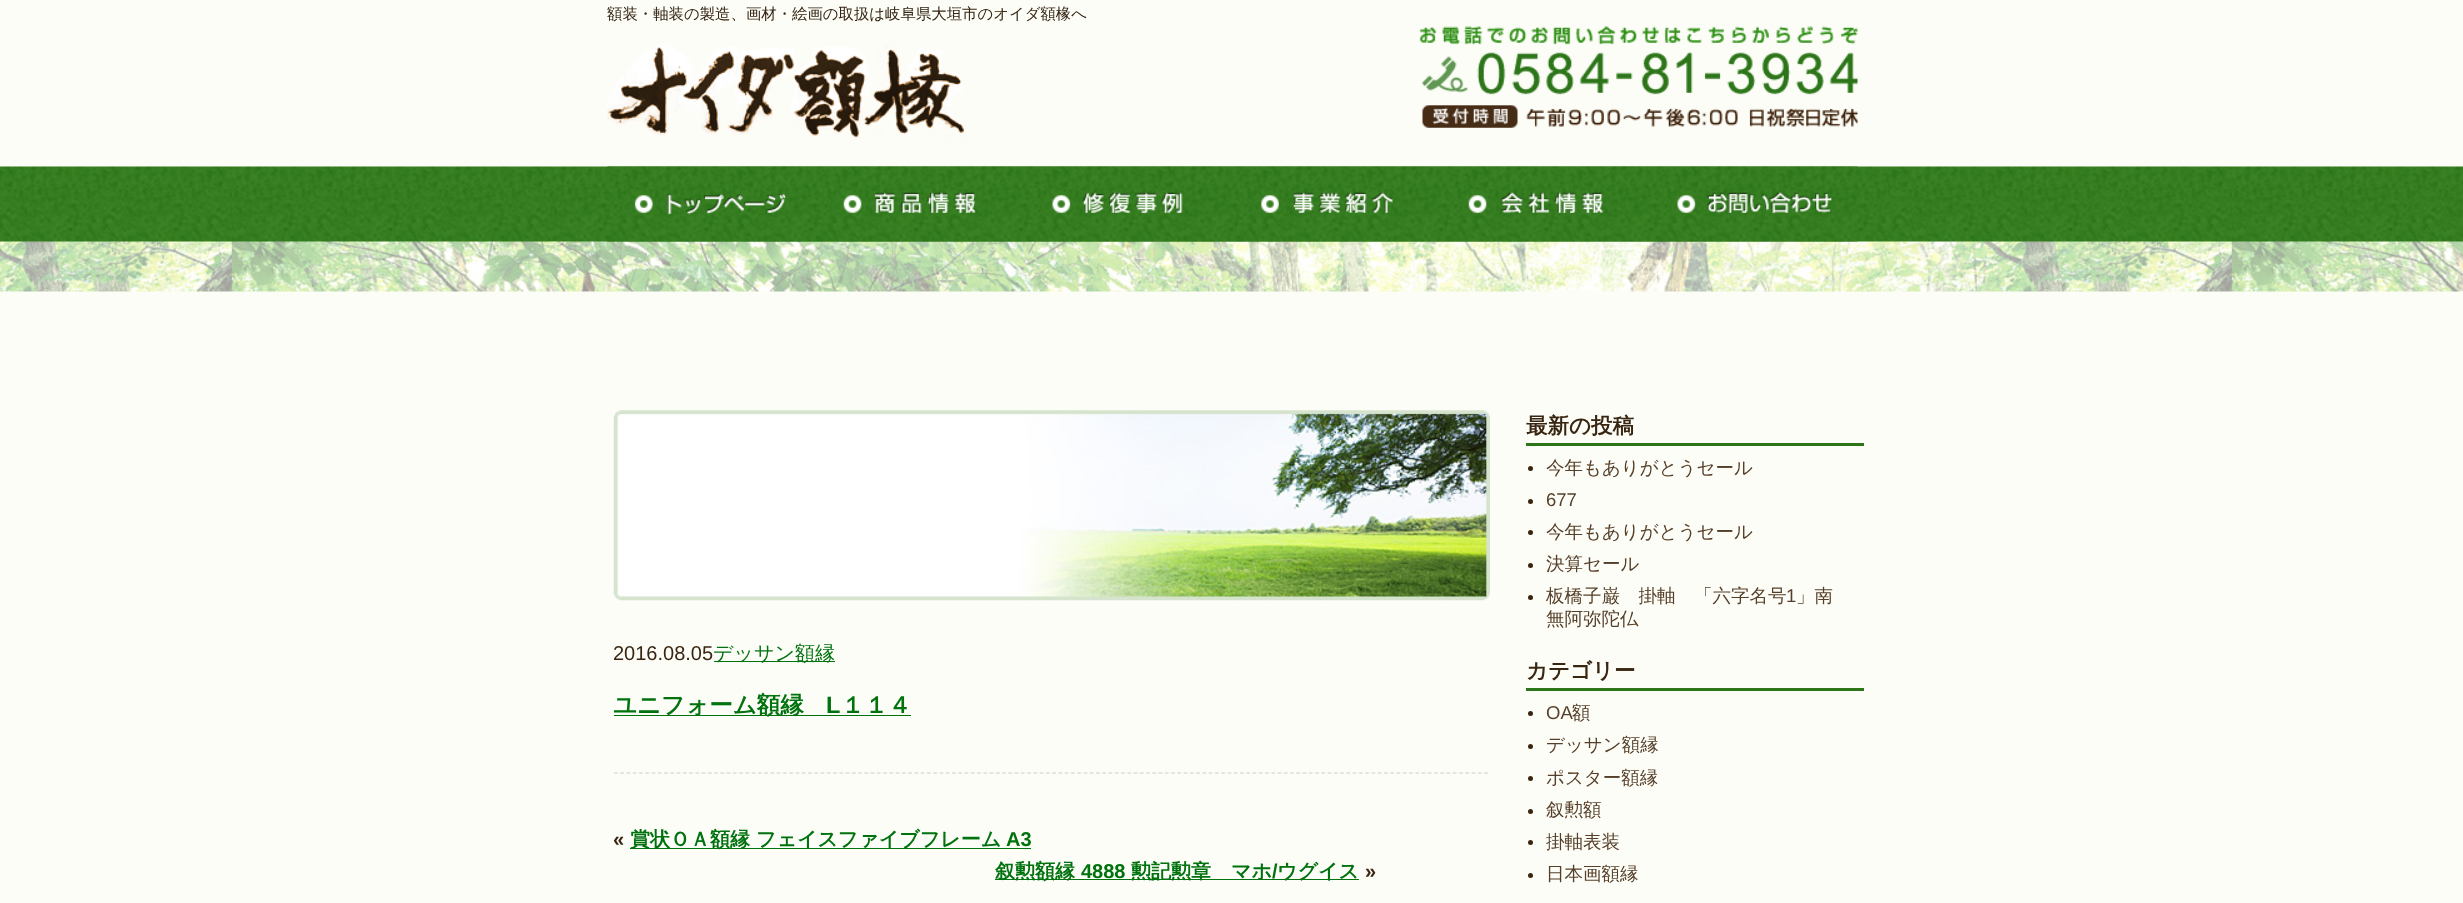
<!DOCTYPE html>
<meta charset="utf-8">
<style>body { margin: 0 } canvas { display: block }</style>
<canvas id="canvas" width="2463" height="903"></canvas>
<script type="module">
  const canvas = document.getElementById("canvas");
  const g = canvas.getContext("2d");
  g.miterLimit = 4;
  g.fontKerning = "normal";
  function drawText(s, x, y, [font, color]) {
    g.font = font;
    g.fillStyle = color;
    g.fillText(s, x, y);
  }
  function fillBox(x, y, w, h, color) {
    g.fillStyle = color;
    g.fillRect(x, y, w, h);
  }
  async function drawPicture(src, x, y, w, h) {
    const img = new Image();
    img.src = src;
    await img.decode();
    g.drawImage(img, x, y, w, h);
  }

  const s1 = ["500 15.4px WenQuanYi Zen Hei", "#332312"];
  const s2 = ["20px Liberation Sans", "#392612"];
  const s3 = ["500 20px WenQuanYi Zen Hei", "#00720E"];
  const s4 = ["bold 23.5px WenQuanYi Zen Hei", "#00720E"];
  const s5 = ["bold 23.5px Liberation Sans", "#00720E"];
  const s6 = ["bold 20px Liberation Sans", "#392612"];
  const s7 = ["bold 20px WenQuanYi Zen Hei", "#00720E"];
  const s8 = ["bold 20px Liberation Sans", "#00720E"];
  const s9 = ["bold 21.5px WenQuanYi Zen Hei", "#392612"];
  const s10 = ["500 18.5px WenQuanYi Zen Hei", "#563F29"];
  const s11 = ["18.5px Liberation Sans", "#563F29"];

  fillBox(0, 0, 2463, 903, "#FDFDF7");
  await drawPicture("pic1.png", 0, 166, 2463, 126);
  drawText("額装・軸装の製造、画材・絵画の取扱は岐阜県大垣市のオイダ額椽へ", 607, 19, s1);
  await drawPicture("pic2.png", 607, 44, 359, 94);
  await drawPicture("pic3.png", 1419, 26, 439, 102);
  await drawPicture("pic4.png", 607, 166, 213, 76);
  await drawPicture("pic5.png", 820, 166, 208, 76);
  await drawPicture("pic6.png", 1027, 166, 208, 76);
  await drawPicture("pic7.png", 1235, 166, 208, 76);
  await drawPicture("pic8.png", 1442, 166, 208, 76);
  await drawPicture("pic9.png", 1650, 166, 208, 76);
  await drawPicture("pic10.png", 613, 410, 877, 191);
  drawText("2016.08.05", 613, 660, s2);
  fillBox(714, 661, 121, 1, "#00720E");
  drawText("デッサン額縁", 713, 660, s3);
  fillBox(614, 715, 297, 1, "#00720E");
  drawText("ユニフォーム額縁", 613, 713, s4);
  drawText("L", 826, 713, s5);
  drawText("１１４", 841, 713, s4);
  g.beginPath();
  g.moveTo(614, 773);
  g.lineTo(1489, 773);
  g.strokeStyle = "#CCCCCC";
  g.lineWidth = 1.2;
  g.setLineDash([3.75, 2.51]);
  g.stroke();
  drawText("«", 613, 846, s6);
  fillBox(630, 848, 401, 1, "#00720E");
  drawText("賞状ＯＡ額縁 フェイスファイブフレーム", 630, 846, s7);
  drawText("A3", 1006, 846, s8);
  fillBox(995, 879, 364, 1, "#00720E");
  drawText("叙勲額縁", 995, 878, s7);
  drawText("4888", 1081, 878, s8);
  drawText("勲記勲章　マホ", 1131, 878, s7);
  drawText("/", 1272, 878, s8);
  drawText("ウグイス", 1277, 878, s7);
  drawText("»", 1365, 878, s6);
  fillBox(1526, 443, 338, 3, "#2C7519");
  drawText("最新の投稿", 1526, 433, s9);
  g.beginPath();
  g.arc(1530.5, 468.5, 2.5, 0, Math.PI * 2);
  g.fill();
  drawText("今年もありがとうセール", 1546, 474, s10);
  g.fillStyle = "#392612";
  g.beginPath();
  g.arc(1530.5, 501.5, 2.5, 0, Math.PI * 2);
  g.fill();
  drawText("677", 1546, 506, s11);
  g.fillStyle = "#392612";
  g.beginPath();
  g.arc(1530.5, 532.5, 2.5, 0, Math.PI * 2);
  g.fill();
  drawText("今年もありがとうセール", 1546, 538, s10);
  g.fillStyle = "#392612";
  g.beginPath();
  g.arc(1530.5, 565.5, 2.5, 0, Math.PI * 2);
  g.fill();
  drawText("決算セール", 1546, 570, s10);
  g.fillStyle = "#392612";
  g.beginPath();
  g.arc(1530.5, 597.5, 2.5, 0, Math.PI * 2);
  g.fill();
  drawText("板橋子巌　掛軸　「六字名号", 1546, 602, s10);
  drawText("1", 1786, 602, s11);
  drawText("」南", 1796, 602, s10);
  drawText("無阿弥陀仏", 1546, 625, s10);
  fillBox(1526, 688, 338, 3, "#2C7519");
  drawText("カテゴリー", 1526, 678, s9);
  g.beginPath();
  g.arc(1530.5, 713.5, 2.5, 0, Math.PI * 2);
  g.fill();
  drawText("OA", 1546, 719, s11);
  drawText("額", 1572, 719, s10);
  g.fillStyle = "#392612";
  g.beginPath();
  g.arc(1530.5, 746.5, 2.5, 0, Math.PI * 2);
  g.fill();
  drawText("デッサン額縁", 1546, 751, s10);
  g.fillStyle = "#392612";
  g.beginPath();
  g.arc(1530.5, 778.5, 2.5, 0, Math.PI * 2);
  g.fill();
  drawText("ポスター額縁", 1546, 784, s10);
  g.fillStyle = "#392612";
  g.beginPath();
  g.arc(1530.5, 811.5, 2.5, 0, Math.PI * 2);
  g.fill();
  drawText("叙勲額", 1546, 816, s10);
  g.fillStyle = "#392612";
  g.beginPath();
  g.arc(1530.5, 842.5, 2.5, 0, Math.PI * 2);
  g.fill();
  drawText("掛軸表装", 1546, 848, s10);
  g.fillStyle = "#392612";
  g.beginPath();
  g.arc(1530.5, 875.5, 2.5, 0, Math.PI * 2);
  g.fill();
  drawText("日本画額縁", 1546, 880, s10);
</script>
